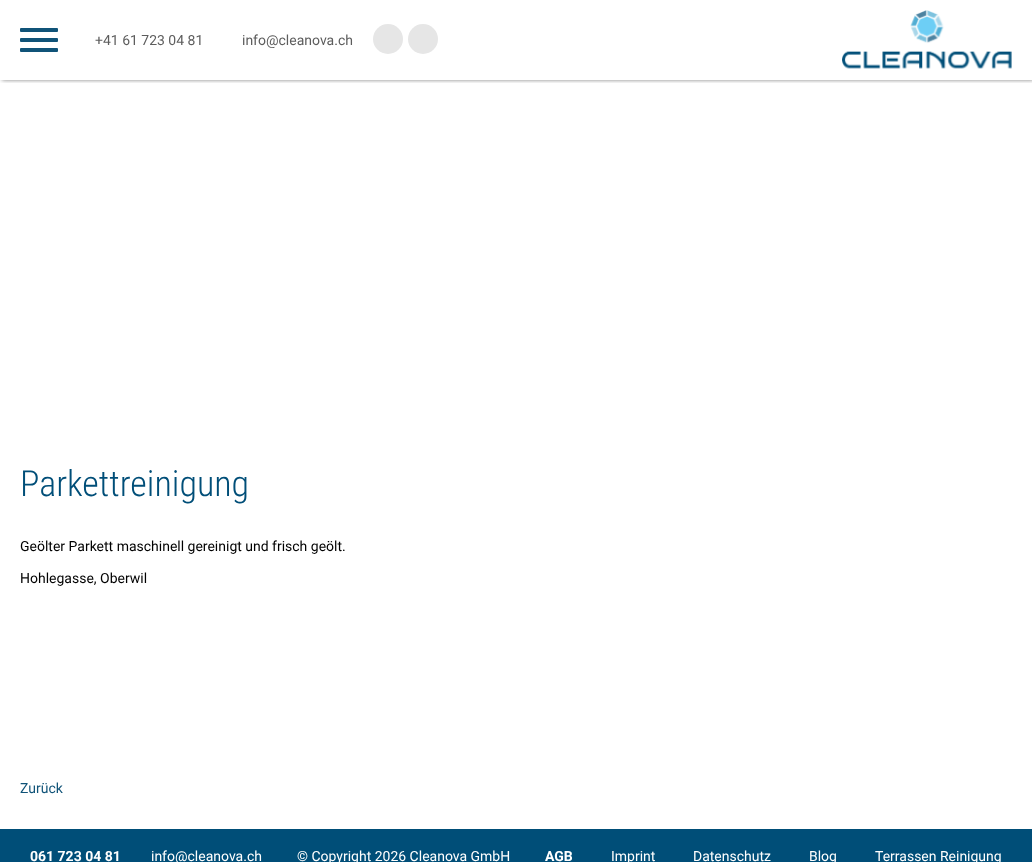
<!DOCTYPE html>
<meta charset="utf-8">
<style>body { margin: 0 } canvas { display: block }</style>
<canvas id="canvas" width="1032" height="862"></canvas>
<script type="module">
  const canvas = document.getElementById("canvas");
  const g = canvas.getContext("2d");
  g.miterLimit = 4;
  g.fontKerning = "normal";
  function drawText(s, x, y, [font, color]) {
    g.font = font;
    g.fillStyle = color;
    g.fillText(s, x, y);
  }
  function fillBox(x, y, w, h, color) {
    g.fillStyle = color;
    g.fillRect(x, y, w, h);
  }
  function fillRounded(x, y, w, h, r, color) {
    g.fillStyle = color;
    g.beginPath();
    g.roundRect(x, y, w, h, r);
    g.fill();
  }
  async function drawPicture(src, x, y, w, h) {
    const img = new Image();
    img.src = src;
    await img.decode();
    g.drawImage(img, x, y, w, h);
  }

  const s1 = ["14px Roboto", "#5D5D5D"];
  const s2 = ["300 36px Roboto Condensed", "#004E78"];
  const s3 = ["14px Roboto", "#000000"];
  const s4 = ["14px Roboto", "#105378"];
  const s5 = ["bold 14px Roboto", "#FFFFFF"];
  const s6 = ["14px Roboto", "#FFFFFF"];

  fillBox(0, 0, 1032, 862, "#FFFFFF");
  g.save();
  g.beginPath();
  g.rect(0, 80, 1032, 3);
  g.clip();
  g.fillStyle = "rgba(0, 0, 0, 0.5)";
  g.filter = "blur(2px)";
  g.beginPath();
  g.rect(2, 0, 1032, 80);
  g.fill();
  g.filter = "none";
  g.restore();
  fillRounded(20, 28, 38, 4, 1, "#105378");
  fillRounded(20, 38, 38, 4, 1, "#105378");
  fillRounded(20, 48, 38, 4, 1, "#105378");
  drawText("+41 61 723 04 81", 95, 45, s1);
  drawText("info@cleanova.ch", 242, 45, s1);
  g.fillStyle = "#E6E6E6";
  g.beginPath();
  g.arc(388, 39, 15, 0, Math.PI * 2);
  g.fill();
  g.beginPath();
  g.arc(423, 39, 15, 0, Math.PI * 2);
  g.fill();
  await drawPicture("pic1.png", 842, 10, 170, 59);
  drawText("Parkettreinigung", 20, 496, s2);
  drawText("Geölter Parkett maschinell gereinigt und frisch geölt.", 20, 551, s3);
  drawText("Hohlegasse, Oberwil", 20, 583, s3);
  drawText("Zurück", 20, 793, s4);
  fillBox(0, 829, 1032, 33, "#004E78");
  drawText("061 723 04 81", 30, 861, s5);
  drawText("info@cleanova.ch", 151, 861, s6);
  drawText("© Copyright 2026 Cleanova GmbH", 297, 861, s6);
  drawText("AGB", 545, 861, s5);
  drawText("Imprint", 611, 861, s6);
  drawText("Datenschutz", 693, 861, s6);
  drawText("Blog", 809, 861, s6);
  drawText("Terrassen Reinigung", 875, 861, s6);
</script>
